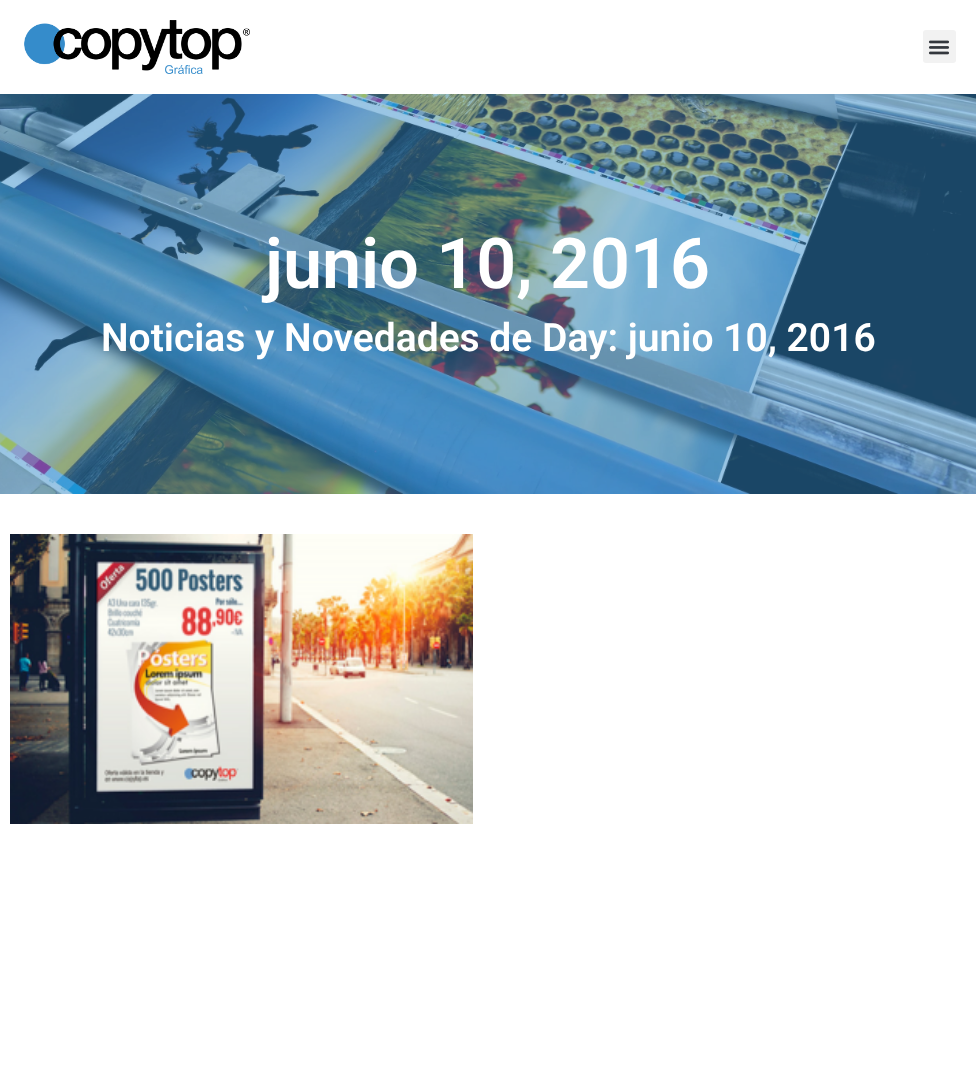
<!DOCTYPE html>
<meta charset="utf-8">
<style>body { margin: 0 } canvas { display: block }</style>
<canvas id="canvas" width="976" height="1086"></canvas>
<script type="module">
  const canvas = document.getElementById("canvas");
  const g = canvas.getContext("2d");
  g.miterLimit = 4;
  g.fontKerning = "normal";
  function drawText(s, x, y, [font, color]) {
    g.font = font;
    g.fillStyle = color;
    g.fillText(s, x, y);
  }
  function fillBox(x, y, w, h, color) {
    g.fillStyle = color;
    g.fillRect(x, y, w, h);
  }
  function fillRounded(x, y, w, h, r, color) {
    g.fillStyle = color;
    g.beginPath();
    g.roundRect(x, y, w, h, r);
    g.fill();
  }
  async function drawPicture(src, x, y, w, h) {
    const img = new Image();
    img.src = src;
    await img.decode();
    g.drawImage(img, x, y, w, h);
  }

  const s1 = ["600 70px Roboto", "#FFFFFF"];
  const s2 = ["600 39px Roboto", "#FFFFFF"];

  fillBox(0, 0, 976, 1086, "#FFFFFF");
  await drawPicture("pic1.png", 24, 20, 226, 54);
  fillRounded(923, 30, 33, 33, 3, "#F2F2F2");
  await drawPicture("pic2.png", 928, 40, 22, 15);
  await drawPicture("pic3.png", 0, 94, 976, 400);
  drawText("junio 10, 2016", 265, 288, s1);
  drawText("Noticias y Novedades de Day: junio 10, 2016", 101, 351, s2);
  await drawPicture("pic4.png", 10, 534, 463, 290);
</script>
